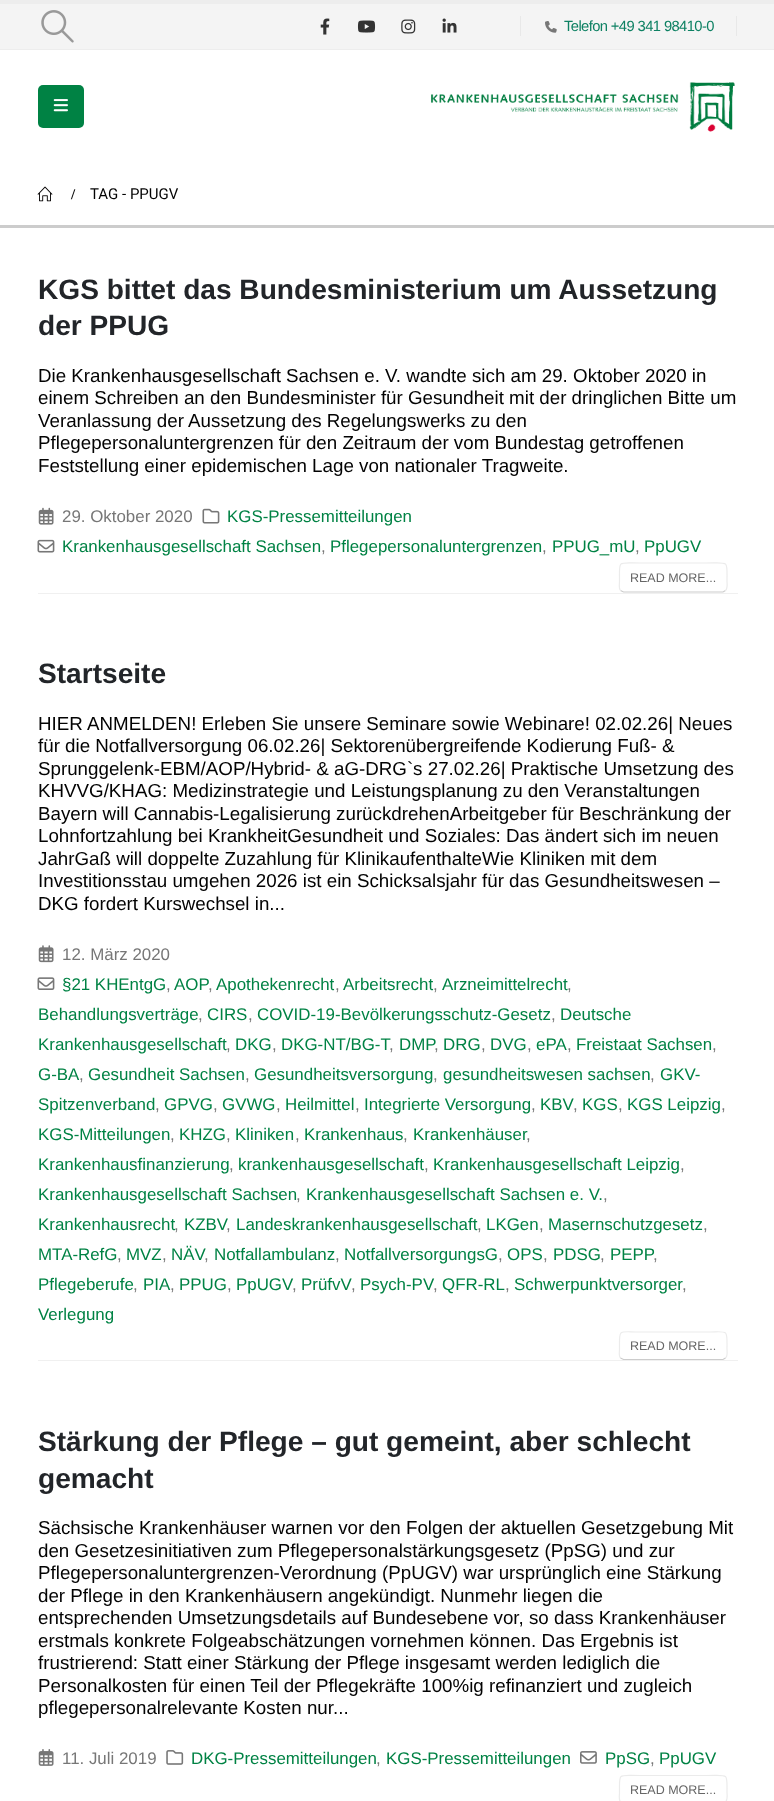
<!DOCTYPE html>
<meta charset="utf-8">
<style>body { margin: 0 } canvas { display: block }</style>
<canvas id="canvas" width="774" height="1801"></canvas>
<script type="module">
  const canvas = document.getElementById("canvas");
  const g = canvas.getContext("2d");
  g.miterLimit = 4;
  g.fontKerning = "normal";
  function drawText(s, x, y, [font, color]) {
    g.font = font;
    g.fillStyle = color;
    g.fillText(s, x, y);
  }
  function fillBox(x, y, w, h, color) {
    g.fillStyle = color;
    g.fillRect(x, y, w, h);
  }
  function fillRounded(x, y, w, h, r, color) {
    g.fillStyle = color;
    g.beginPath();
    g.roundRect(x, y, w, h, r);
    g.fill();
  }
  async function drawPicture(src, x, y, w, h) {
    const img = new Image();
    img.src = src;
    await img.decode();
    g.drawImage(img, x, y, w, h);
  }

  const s1 = ["14.75px Liberation Sans", "#0E8163"];
  const s2 = ["bold 15px Liberation Serif", "#020202"];
  const s3 = ["15px Roboto", "#020202"];
  const s4 = ["bold 28.1px Liberation Sans", "#222529"];
  const s5 = ["18.75px Liberation Sans", "#020202"];
  const s6 = ["16.9px Liberation Sans", "#777777"];
  const s7 = ["16.9px Liberation Sans", "#008244"];
  const s8 = ["12.5px Liberation Sans", "#666666"];

  fillBox(0, 0, 774, 1801, "#FFFFFF");
  fillBox(0, 0, 774, 4, "#EDEDED");
  fillBox(0, 4, 774, 45, "#F4F4F4");
  fillBox(0, 49, 774, 1, "#EDEDED");
  await drawPicture("pic1.png", 41, 10, 33, 33);
  await drawPicture("pic2.png", 320, 18, 10, 17);
  await drawPicture("pic3.png", 357, 20, 19, 13);
  await drawPicture("pic4.png", 401, 19, 15, 15);
  await drawPicture("pic5.png", 442, 18, 15, 15);
  fillBox(520, 16, 1, 20, "#E8E8E8");
  await drawPicture("pic6.png", 545, 21, 12, 12);
  g.letterSpacing = "-0.6px";
  drawText("Telefon +49 341 98410-0", 564, 31, s1);
  fillBox(736, 16, 1, 20, "#E8E8E8");
  fillRounded(38, 85, 46, 43, 5, "#008244");
  await drawPicture("pic7.png", 53, 99, 15, 13);
  await drawPicture("pic8.png", 431, 82, 304, 50);
  fillBox(0, 225, 774, 3, "#CCCCCC");
  await drawPicture("pic9.png", 37, 186, 16, 16);
  g.letterSpacing = "0px";
  drawText("/", 71, 199, s2);
  drawText("TAG - PPUGV", 90, 199, s3);
  fillBox(38, 593, 700, 1, "#F0F0F0");
  drawText("KGS bittet das Bundesministerium um Aussetzung", 38, 299, s4);
  drawText("der PPUG", 38, 335, s4);
  drawText("Die Krankenhausgesellschaft Sachsen e. V. wandte sich am 29. Oktober 2020 in", 38, 382, s5);
  drawText("einem Schreiben an den Bundesminister für Gesundheit mit der dringlichen Bitte um", 38, 404, s5);
  drawText("Veranlassung der Aussetzung des Regelungswerks zu den", 38, 427, s5);
  drawText("Pflegepersonaluntergrenzen für den Zeitraum der vom Bundestag getroffenen", 38, 449, s5);
  drawText("Feststellung einer epidemischen Lage von nationaler Tragweite.", 38, 472, s5);
  await drawPicture("pic10.png", 38, 507, 16, 18);
  drawText("29. Oktober 2020", 62, 522, s6);
  await drawPicture("pic11.png", 202, 508, 18, 16);
  drawText("KGS-Pressemitteilungen", 227, 522, s7);
  await drawPicture("pic12.png", 37, 539, 18, 14);
  drawText("Krankenhausgesellschaft Sachsen", 62, 552, s7);
  drawText(",", 321, 552, s6);
  drawText("Pflegepersonaluntergrenzen", 330, 552, s7);
  drawText(",", 542, 552, s6);
  drawText("PPUG_mU", 552, 552, s7);
  drawText(",", 635, 552, s6);
  drawText("PpUGV", 644, 552, s7);
  g.beginPath();
  g.moveTo(725.5, 590.5);
  g.lineTo(723, 592);
  g.lineTo(623.5, 592);
  g.lineTo(620.5, 590.5);
  g.strokeStyle = "#CCCCCC";
  g.lineWidth = 1.2;
  g.stroke();
  g.beginPath();
  g.moveTo(620.5, 590.5);
  g.bezierCurveTo(618.5, 588, 619.5, 583.5, 619.5, 581);
  g.bezierCurveTo(619.5, 559.5, 617, 563, 640, 563);
  g.lineTo(706, 563);
  g.bezierCurveTo(729.5, 563, 727, 559.5, 727, 581);
  g.bezierCurveTo(727, 583.5, 728, 588, 725.5, 590.5);
  g.strokeStyle = "#EBEBEB";
  g.stroke();
  drawText("READ MORE...", 630, 582, s8);
  fillBox(38, 1360, 700, 1, "#F0F0F0");
  drawText("Startseite", 38, 683, s4);
  drawText("HIER ANMELDEN! Erleben Sie unsere Seminare sowie Webinare! 02.02.26| Neues", 38, 730, s5);
  drawText("für die Notfallversorgung 06.02.26| Sektorenübergreifende Kodierung Fuß- &", 38, 752, s5);
  drawText("Sprunggelenk-EBM/AOP/Hybrid- & aG-DRG`s 27.02.26| Praktische Umsetzung des", 38, 775, s5);
  drawText("KHVVG/KHAG: Medizinstrategie und Leistungsplanung zu den Veranstaltungen", 38, 797, s5);
  drawText("Bayern will Cannabis-Legalisierung zurückdrehenArbeitgeber für Beschränkung der", 38, 820, s5);
  drawText("Lohnfortzahlung bei KrankheitGesundheit und Soziales: Das ändert sich im neuen", 38, 842, s5);
  drawText("JahrGaß will doppelte Zuzahlung für KlinikaufenthalteWie Kliniken mit dem", 38, 865, s5);
  drawText("Investitionsstau umgehen 2026 ist ein Schicksalsjahr für das Gesundheitswesen –", 38, 887, s5);
  drawText("DKG fordert Kurswechsel in...", 38, 910, s5);
  await drawPicture("pic13.png", 38, 945, 16, 18);
  drawText("12. März 2020", 62, 960, s6);
  await drawPicture("pic14.png", 37, 977, 18, 13);
  drawText("§21 KHEntgG", 62, 990, s7);
  drawText(",", 166, 990, s6);
  drawText("AOP", 174, 990, s7);
  drawText(",", 208, 990, s6);
  drawText("Apothekenrecht", 216, 990, s7);
  drawText(",", 335, 990, s6);
  drawText("Arbeitsrecht", 343, 990, s7);
  drawText(",", 433, 990, s6);
  drawText("Arzneimittelrecht", 442, 990, s7);
  drawText(",", 567, 990, s6);
  drawText("Behandlungsverträge", 38, 1020, s7);
  drawText(",", 198, 1020, s6);
  drawText("CIRS", 207, 1020, s7);
  drawText(",", 248, 1020, s6);
  drawText("COVID-19-Bevölkerungsschutz-Gesetz", 257, 1020, s7);
  drawText(",", 551, 1020, s6);
  drawText("Deutsche", 560, 1020, s7);
  drawText("Krankenhausgesellschaft", 38, 1050, s7);
  drawText(",", 226, 1050, s6);
  drawText("DKG", 235, 1050, s7);
  drawText(",", 272, 1050, s6);
  drawText("DKG-NT/BG-T", 281, 1050, s7);
  drawText(",", 389, 1050, s6);
  drawText("DMP", 399, 1050, s7);
  drawText(",", 434, 1050, s6);
  drawText("DRG", 443, 1050, s7);
  drawText(",", 481, 1050, s6);
  drawText("DVG", 490, 1050, s7);
  drawText(",", 527, 1050, s6);
  drawText("ePA", 536, 1050, s7);
  drawText(",", 567, 1050, s6);
  drawText("Freistaat Sachsen", 576, 1050, s7);
  drawText(",", 712, 1050, s6);
  drawText("G-BA", 38, 1080, s7);
  drawText(",", 79, 1080, s6);
  drawText("Gesundheit Sachsen", 88, 1080, s7);
  drawText(",", 245, 1080, s6);
  drawText("Gesundheitsversorgung", 254, 1080, s7);
  drawText(",", 433, 1080, s6);
  drawText("gesundheitswesen sachsen", 443, 1080, s7);
  drawText(",", 650, 1080, s6);
  drawText("GKV-", 660, 1080, s7);
  drawText("Spitzenverband", 38, 1110, s7);
  drawText(",", 155, 1110, s6);
  drawText("GPVG", 164, 1110, s7);
  drawText(",", 213, 1110, s6);
  drawText("GVWG", 222, 1110, s7);
  drawText(",", 276, 1110, s6);
  drawText("Heilmittel", 285, 1110, s7);
  drawText(",", 355, 1110, s6);
  drawText("Integrierte Versorgung", 364, 1110, s7);
  drawText(",", 531, 1110, s6);
  drawText("KBV", 540, 1110, s7);
  drawText(",", 573, 1110, s6);
  drawText("KGS", 582, 1110, s7);
  drawText(",", 618, 1110, s6);
  drawText("KGS Leipzig", 627, 1110, s7);
  drawText(",", 721, 1110, s6);
  drawText("KGS-Mitteilungen", 38, 1140, s7);
  drawText(",", 170, 1140, s6);
  drawText("KHZG", 179, 1140, s7);
  drawText(",", 226, 1140, s6);
  drawText("Kliniken", 235, 1140, s7);
  drawText(",", 295, 1140, s6);
  drawText("Krankenhaus", 304, 1140, s7);
  drawText(",", 403, 1140, s6);
  drawText("Krankenhäuser", 413, 1140, s7);
  drawText(",", 526, 1140, s6);
  drawText("Krankenhausfinanzierung", 38, 1170, s7);
  drawText(",", 229, 1170, s6);
  drawText("krankenhausgesellschaft", 238, 1170, s7);
  drawText(",", 424, 1170, s6);
  drawText("Krankenhausgesellschaft Leipzig", 433, 1170, s7);
  drawText(",", 680, 1170, s6);
  drawText("Krankenhausgesellschaft Sachsen", 38, 1200, s7);
  drawText(",", 296, 1200, s6);
  drawText("Krankenhausgesellschaft Sachsen e. V.", 306, 1200, s7);
  drawText(",", 603, 1200, s6);
  drawText("Krankenhausrecht", 38, 1230, s7);
  drawText(",", 174, 1230, s6);
  drawText("KZBV", 184, 1230, s7);
  drawText(",", 226, 1230, s6);
  drawText("Landeskrankenhausgesellschaft", 236, 1230, s7);
  drawText(",", 477, 1230, s6);
  drawText("LKGen", 486, 1230, s7);
  drawText(",", 539, 1230, s6);
  drawText("Masernschutzgesetz", 548, 1230, s7);
  drawText(",", 703, 1230, s6);
  drawText("MTA-RefG", 38, 1260, s7);
  drawText("MVZ", 126, 1260, s7);
  drawText("NÄV", 171, 1260, s7);
  drawText("Notfallambulanz", 214, 1260, s7);
  drawText("NotfallversorgungsG", 344, 1260, s7);
  drawText("OPS", 507, 1260, s7);
  drawText("PDSG", 553, 1260, s7);
  drawText("PEPP", 610, 1260, s7);
  drawText(",", 117, 1260, s6);
  drawText(",", 162, 1260, s6);
  drawText(",", 204, 1260, s6);
  drawText(",", 335, 1260, s6);
  drawText(",", 498, 1260, s6);
  drawText(",", 543, 1260, s6);
  drawText(",", 600, 1260, s6);
  drawText(",", 653, 1260, s6);
  drawText("Pflegeberufe", 38, 1290, s7);
  drawText(",", 133, 1290, s6);
  drawText("PIA", 143, 1290, s7);
  drawText(",", 170, 1290, s6);
  drawText("PPUG", 179, 1290, s7);
  drawText(",", 227, 1290, s6);
  drawText("PpUGV", 236, 1290, s7);
  drawText(",", 292, 1290, s6);
  drawText("PrüfvV", 301, 1290, s7);
  drawText("Psych-PV", 360, 1290, s7);
  drawText("QFR-RL", 442, 1290, s7);
  drawText("Schwerpunktversorger", 514, 1290, s7);
  drawText(",", 351, 1290, s6);
  drawText(",", 433, 1290, s6);
  drawText(",", 505, 1290, s6);
  drawText(",", 682, 1290, s6);
  drawText("Verlegung", 38, 1320, s7);
  g.beginPath();
  g.moveTo(725.5, 1358);
  g.lineTo(723, 1359.5);
  g.lineTo(623.5, 1359.5);
  g.lineTo(620.5, 1358);
  g.strokeStyle = "#CCCCCC";
  g.stroke();
  g.beginPath();
  g.moveTo(620.5, 1358);
  g.bezierCurveTo(618.5, 1356, 619.5, 1351.5, 619.5, 1349);
  g.bezierCurveTo(619.5, 1328, 617.5, 1332, 640, 1332);
  g.lineTo(706, 1332);
  g.bezierCurveTo(729, 1332, 727, 1328, 727, 1349);
  g.bezierCurveTo(727, 1351.5, 728, 1356, 725.5, 1358);
  g.strokeStyle = "rgba(0, 0, 0, 0.08)";
  g.stroke();
  drawText("READ MORE...", 630, 1350, s8);
  drawText("Stärkung der Pflege – gut gemeint, aber schlecht", 38, 1451, s4);
  drawText("gemacht", 38, 1488, s4);
  drawText("Sächsische Krankenhäuser warnen vor den Folgen der aktuellen Gesetzgebung Mit", 38, 1534, s5);
  drawText("den Gesetzesinitiativen zum Pflegepersonalstärkungsgesetz (PpSG) und zur", 38, 1557, s5);
  drawText("Pflegepersonaluntergrenzen-Verordnung (PpUGV) war ursprünglich eine Stärkung", 38, 1579, s5);
  drawText("der Pflege in den Krankenhäusern angekündigt. Nunmehr liegen die", 38, 1602, s5);
  drawText("entsprechenden Umsetzungsdetails auf Bundesebene vor, so dass Krankenhäuser", 38, 1624, s5);
  drawText("erstmals konkrete Folgeabschätzungen vornehmen können. Das Ergebnis ist", 38, 1647, s5);
  drawText("frustrierend: Statt einer Stärkung der Pflege insgesamt werden lediglich die", 38, 1669, s5);
  drawText("Personalkosten für einen Teil der Pflegekräfte 100%ig refinanziert und zugleich", 38, 1692, s5);
  drawText("pflegepersonalrelevante Kosten nur...", 38, 1714, s5);
  await drawPicture("pic15.png", 38, 1749, 16, 17);
  drawText("11. Juli 2019", 62, 1764, s6);
  await drawPicture("pic16.png", 166, 1750, 18, 15);
  drawText("DKG-Pressemitteilungen", 191, 1764, s7);
  drawText(",", 376, 1764, s6);
  drawText("KGS-Pressemitteilungen", 386, 1764, s7);
  await drawPicture("pic17.png", 580, 1751, 17, 13);
  drawText("PpSG", 605, 1764, s7);
  drawText(",", 650, 1764, s6);
  drawText("PpUGV", 659, 1764, s7);
  g.beginPath();
  g.moveTo(620.5, 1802);
  g.bezierCurveTo(618.5, 1799.5, 619.5, 1795.5, 619.5, 1792.5);
  g.bezierCurveTo(619.5, 1772, 617.5, 1775.5, 640, 1775.5);
  g.lineTo(706, 1775.5);
  g.bezierCurveTo(729, 1775.5, 727, 1772, 727, 1792.5);
  g.bezierCurveTo(727, 1795.5, 728, 1799.5, 725.5, 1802);
  g.strokeStyle = "#EBEBEB";
  g.stroke();
  drawText("READ MORE...", 630, 1794, s8);
</script>
